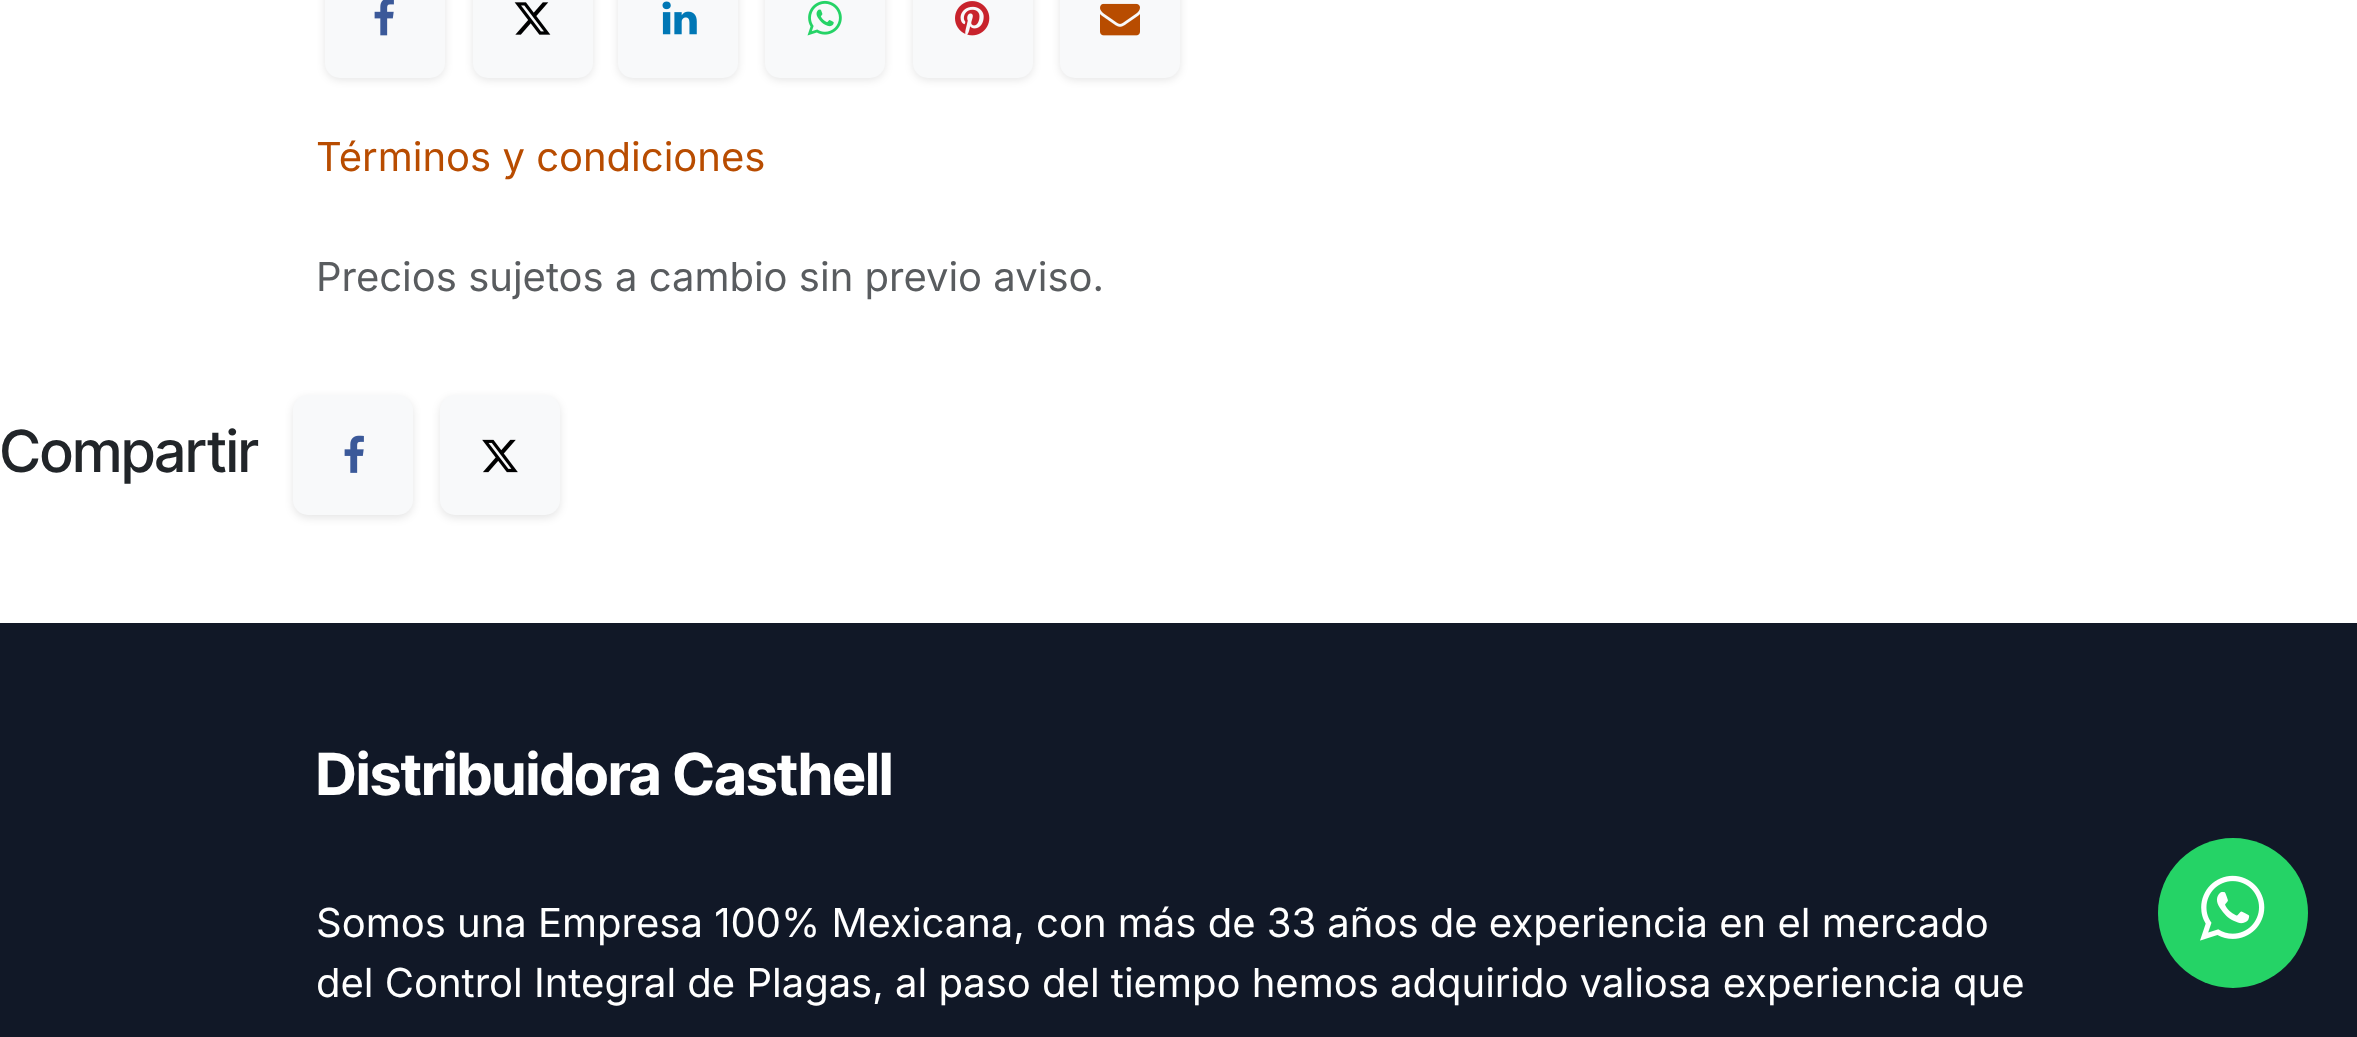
<!DOCTYPE html>
<meta charset="utf-8">
<style>body { margin: 0 } canvas { display: block }</style>
<canvas id="canvas" width="2357" height="1037"></canvas>
<script type="module">
  const canvas = document.getElementById("canvas");
  const g = canvas.getContext("2d");
  g.miterLimit = 4;
  g.fontKerning = "normal";
  function drawText(s, x, y, [font, color]) {
    g.font = font;
    g.fillStyle = color;
    g.fillText(s, x, y);
  }
  function fillBox(x, y, w, h, color) {
    g.fillStyle = color;
    g.fillRect(x, y, w, h);
  }
  function fillRounded(x, y, w, h, r, color) {
    g.fillStyle = color;
    g.beginPath();
    g.roundRect(x, y, w, h, r);
    g.fill();
  }
  async function drawPicture(src, x, y, w, h) {
    const img = new Image();
    img.src = src;
    await img.decode();
    g.drawImage(img, x, y, w, h);
  }

  const s1 = ["40px Inter", "#B84C00"];
  const s2 = ["40px Inter", "#595C5F"];
  const s3 = ["500 58px Inter Tight", "#212529"];
  const s4 = ["bold 58px Inter Tight", "#FFFFFF"];
  const s5 = ["40px Inter", "#FFFFFF"];

  fillBox(0, 0, 2357, 1037, "#FFFFFF");
  g.fillStyle = "rgba(0, 0, 0, 0.1)";
  g.filter = "blur(4px)";
  g.beginPath();
  g.roundRect(325, -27, 120, 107, 15);
  g.fill();
  g.filter = "none";
  fillRounded(325, -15, 120, 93, 15, "#F8F9FA");
  await drawPicture("pic1.png", 374, 0, 20, 36);
  g.fillStyle = "rgba(0, 0, 0, 0.1)";
  g.filter = "blur(4px)";
  g.beginPath();
  g.roundRect(473, -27, 120, 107, 15);
  g.fill();
  g.filter = "none";
  fillRounded(473, -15, 120, 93, 15, "#F8F9FA");
  await drawPicture("pic2.png", 514, 2, 37, 33);
  g.fillStyle = "rgba(0, 0, 0, 0.1)";
  g.filter = "blur(4px)";
  g.beginPath();
  g.roundRect(618, -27, 120, 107, 15);
  g.fill();
  g.filter = "none";
  fillRounded(618, -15, 120, 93, 15, "#F8F9FA");
  await drawPicture("pic3.png", 662, 1, 35, 34);
  g.fillStyle = "rgba(0, 0, 0, 0.1)";
  g.filter = "blur(4px)";
  g.beginPath();
  g.roundRect(765, -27, 120, 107, 15);
  g.fill();
  g.filter = "none";
  fillRounded(765, -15, 120, 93, 15, "#F8F9FA");
  await drawPicture("pic4.png", 807, 0, 35, 36);
  g.fillStyle = "rgba(0, 0, 0, 0.1)";
  g.filter = "blur(4px)";
  g.beginPath();
  g.roundRect(913, -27, 120, 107, 15);
  g.fill();
  g.filter = "none";
  fillRounded(913, -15, 120, 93, 15, "#F8F9FA");
  await drawPicture("pic5.png", 955, 1, 35, 35);
  g.fillStyle = "rgba(0, 0, 0, 0.1)";
  g.filter = "blur(4px)";
  g.beginPath();
  g.roundRect(1060, -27, 120, 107, 15);
  g.fill();
  g.filter = "none";
  fillRounded(1060, -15, 120, 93, 15, "#F8F9FA");
  await drawPicture("pic6.png", 1100, 3, 40, 33);
  drawText("Términos y condiciones", 316, 171, s1);
  drawText("Precios sujetos a cambio sin previo aviso.", 316, 291, s2);
  drawText("Compartir", 0, 472, s3);
  g.fillStyle = "rgba(0, 0, 0, 0.1)";
  g.filter = "blur(4px)";
  g.beginPath();
  g.roundRect(293, 398, 120, 120, 15);
  g.fill();
  g.filter = "none";
  fillRounded(293, 395, 120, 120, 15, "#F8F9FA");
  await drawPicture("pic7.png", 344, 435, 20, 38);
  g.fillStyle = "rgba(0, 0, 0, 0.1)";
  g.filter = "blur(4px)";
  g.beginPath();
  g.roundRect(440, 398, 120, 120, 15);
  g.fill();
  g.filter = "none";
  fillRounded(440, 395, 120, 120, 15, "#F8F9FA");
  await drawPicture("pic8.png", 482, 439, 36, 34);
  fillBox(0, 623, 2357, 414, "#111827");
  drawText("Distribuidora Casthell", 316, 795, s4);
  drawText("Somos una Empresa 100% Mexicana, con más de 33 años de experiencia en el mercado", 316, 937, s5);
  drawText("del Control Integral de Plagas, al paso del tiempo hemos adquirido valiosa experiencia que", 316, 997, s5);
  g.fillStyle = "#25D366";
  g.beginPath();
  g.arc(2233, 913, 75, 0, Math.PI * 2);
  g.fill();
  await drawPicture("pic9.png", 2200, 875, 65, 66);
</script>
